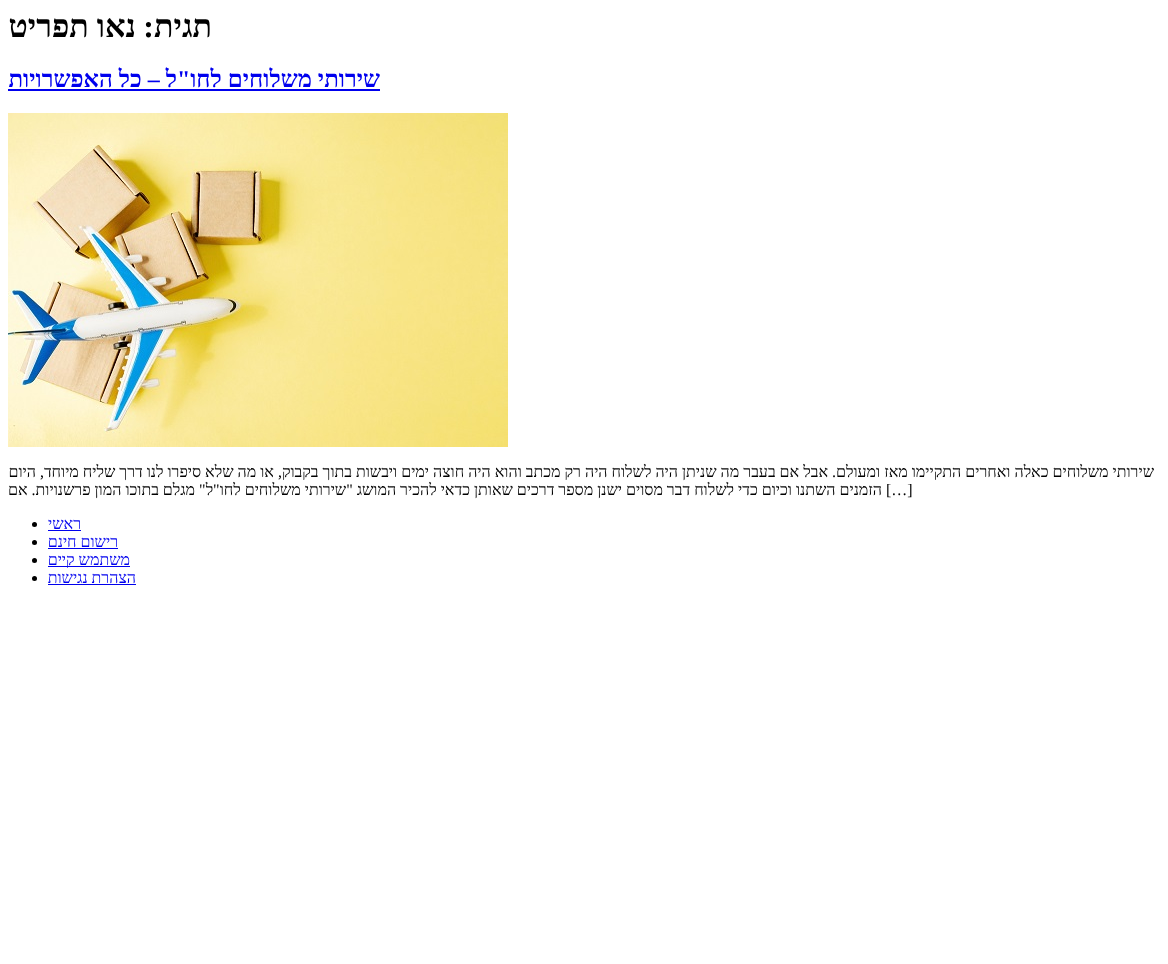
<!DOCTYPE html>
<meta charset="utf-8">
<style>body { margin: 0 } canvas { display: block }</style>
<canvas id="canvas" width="1168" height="964"></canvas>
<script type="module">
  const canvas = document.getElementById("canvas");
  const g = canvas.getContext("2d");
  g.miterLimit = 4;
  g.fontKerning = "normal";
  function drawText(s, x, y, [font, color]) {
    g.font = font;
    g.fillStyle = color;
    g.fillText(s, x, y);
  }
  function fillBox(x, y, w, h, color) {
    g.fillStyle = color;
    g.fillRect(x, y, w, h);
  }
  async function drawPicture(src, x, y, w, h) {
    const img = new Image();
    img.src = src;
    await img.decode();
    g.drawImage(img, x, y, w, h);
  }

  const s1 = ["bold 32px Liberation Serif", "#000000"];
  const s2 = ["bold 24px Liberation Serif", "#0000EE"];
  const s3 = ["16px Liberation Serif", "#000000"];
  const s4 = ["16px Liberation Serif", "#0000EE"];

  fillBox(0, 0, 1168, 964, "#FFFFFF");
  g.direction = "rtl";
  drawText("תגית:", 212, 37, s1);
  drawText("נאו תפריט", 136, 37, s1);
  drawText("שירותי משלוחים לחו\"ל – כל האפשרויות", 380, 87, s2);
  fillBox(8, 89, 372, 2, "#0000EE");
  await drawPicture("pic1.png", 8, 113, 500, 334);
  drawText("שירותי משלוחים כאלה ואחרים התקיימו מאז ומעולם. אבל אם בעבר מה שניתן היה לשלוח היה רק מכתב והוא היה חוצה ימים ויבשות בתוך בקבוק, או מה שלא סיפרו לנו דרך שליח מיוחד, היום", 1154, 477, s3);
  g.direction = "ltr";
  drawText("[…]", 886, 495, s3);
  g.direction = "rtl";
  drawText("הזמנים השתנו וכיום כדי לשלוח דבר מסוים ישנן מספר דרכים שאותן כדאי להכיר המושג \"שירותי משלוחים לחו\"ל\" מגלם בתוכו המון פרשנויות. אם", 882, 495, s3);
  drawText("ראשי", 81, 529, s4);
  fillBox(48, 530, 33, 1, "#0000EE");
  g.fillStyle = "#000000";
  g.beginPath();
  g.arc(34.5, 524.5, 2.5, 0, Math.PI * 2);
  g.fill();
  drawText("רישום חינם", 118, 547, s4);
  fillBox(48, 548, 70, 1, "#0000EE");
  g.fillStyle = "#000000";
  g.beginPath();
  g.arc(34.5, 542.5, 2.5, 0, Math.PI * 2);
  g.fill();
  fillBox(48, 566, 82, 1, "#0000EE");
  drawText("משתמש קיים", 130, 565, s4);
  g.fillStyle = "#000000";
  g.beginPath();
  g.arc(34.5, 560.5, 2.5, 0, Math.PI * 2);
  g.fill();
  drawText("הצהרת נגישות", 136, 583, s4);
  fillBox(48, 584, 88, 1, "#0000EE");
  g.fillStyle = "#000000";
  g.beginPath();
  g.arc(34.5, 578.5, 2.5, 0, Math.PI * 2);
  g.fill();
</script>
